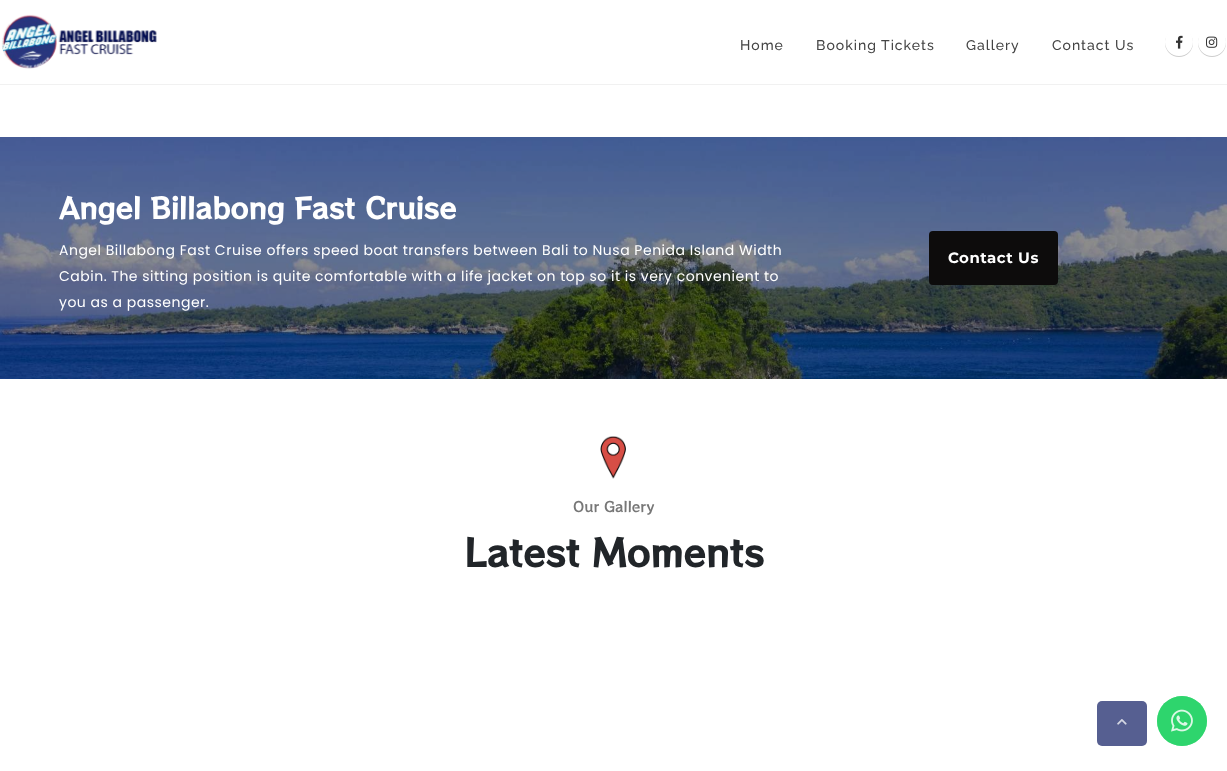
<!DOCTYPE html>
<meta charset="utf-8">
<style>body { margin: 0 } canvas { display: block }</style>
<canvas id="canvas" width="1227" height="771"></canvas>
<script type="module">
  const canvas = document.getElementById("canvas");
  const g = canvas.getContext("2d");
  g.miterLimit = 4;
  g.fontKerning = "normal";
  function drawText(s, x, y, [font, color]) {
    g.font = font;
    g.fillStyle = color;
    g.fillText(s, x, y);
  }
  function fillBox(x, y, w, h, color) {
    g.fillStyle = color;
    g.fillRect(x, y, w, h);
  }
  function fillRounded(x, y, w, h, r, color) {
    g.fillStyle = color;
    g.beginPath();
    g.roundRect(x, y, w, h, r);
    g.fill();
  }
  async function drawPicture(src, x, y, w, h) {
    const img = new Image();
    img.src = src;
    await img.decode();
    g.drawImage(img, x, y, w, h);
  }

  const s1 = ["500 14px Raleway", "#444444"];
  const s2 = ["bold 28px RocknRoll One", "#FFFFFF"];
  const s3 = ["14px Poppins", "#FFFFFF"];
  const s4 = ["bold 15px Montserrat", "#FFFFFF"];
  const s5 = ["14px RocknRoll One", "#777777"];
  const s6 = ["bold 36.5px RocknRoll One", "#212529"];

  fillBox(0, 0, 1227, 771, "#FFFFFF");
  await drawPicture("pic1.png", 1, 14, 156, 55);
  g.letterSpacing = "1px";
  drawText("Home", 740, 50, s1);
  drawText("Booking Tickets", 816, 50, s1);
  drawText("Gallery", 966, 50, s1);
  drawText("Contact Us", 1052, 50, s1);
  g.fillStyle = "rgba(0, 0, 0, 0.2)";
  g.filter = "blur(0.5px)";
  g.beginPath();
  g.roundRect(1165, 29, 28, 28, 14);
  g.fill();
  g.filter = "none";
  g.fillStyle = "#FFFFFF";
  g.beginPath();
  g.arc(1179, 42, 14, 0, Math.PI * 2);
  g.fill();
  await drawPicture("pic2.png", 1176, 35, 7, 14);
  g.fillStyle = "rgba(0, 0, 0, 0.2)";
  g.filter = "blur(0.5px)";
  g.beginPath();
  g.roundRect(1198, 29, 28, 28, 14);
  g.fill();
  g.filter = "none";
  g.fillStyle = "#FFFFFF";
  g.beginPath();
  g.arc(1212, 42, 14, 0, Math.PI * 2);
  g.fill();
  await drawPicture("pic3.png", 1206, 36, 12, 12);
  fillBox(0, 84, 1227, 1, "#F1F1F1");
  await drawPicture("pic4.png", 0, 137, 1227, 242);
  g.letterSpacing = "0px";
  drawText("Angel Billabong Fast Cruise", 59, 219, s2);
  g.letterSpacing = "0.5px";
  drawText("Angel Billabong Fast Cruise offers speed boat transfers between Bali to Nusa Penida Island Width", 59, 255, s3);
  drawText("Cabin. The sitting position is quite comfortable with a life jacket on top so it is very convenient to", 59, 281, s3);
  drawText("you as a passenger.", 59, 307, s3);
  fillRounded(929, 231, 129, 54, 4, "#0D0C0C");
  drawText("Contact Us", 948, 263, s4);
  await drawPicture("pic5.png", 600, 436, 26, 43);
  g.letterSpacing = "0px";
  drawText("Our Gallery", 573, 512, s5);
  drawText("Latest Moments", 464, 567, s6);
  g.fillStyle = "#51DC85";
  g.beginPath();
  g.arc(1182, 721, 25, 0, Math.PI * 2);
  g.fill();
  await drawPicture("pic6.png", 1171, 709, 22, 23);
  fillRounded(1097, 701, 50, 45, 5, "#565F91");
  await drawPicture("pic7.png", 1117, 719, 10, 6);
  g.fillStyle = "rgba(37, 211, 102, 0.8)";
  g.beginPath();
  g.arc(1182, 721, 25, 0, Math.PI * 2);
  g.fill();
  await drawPicture("pic8.png", 1171, 709, 22, 23);
</script>
